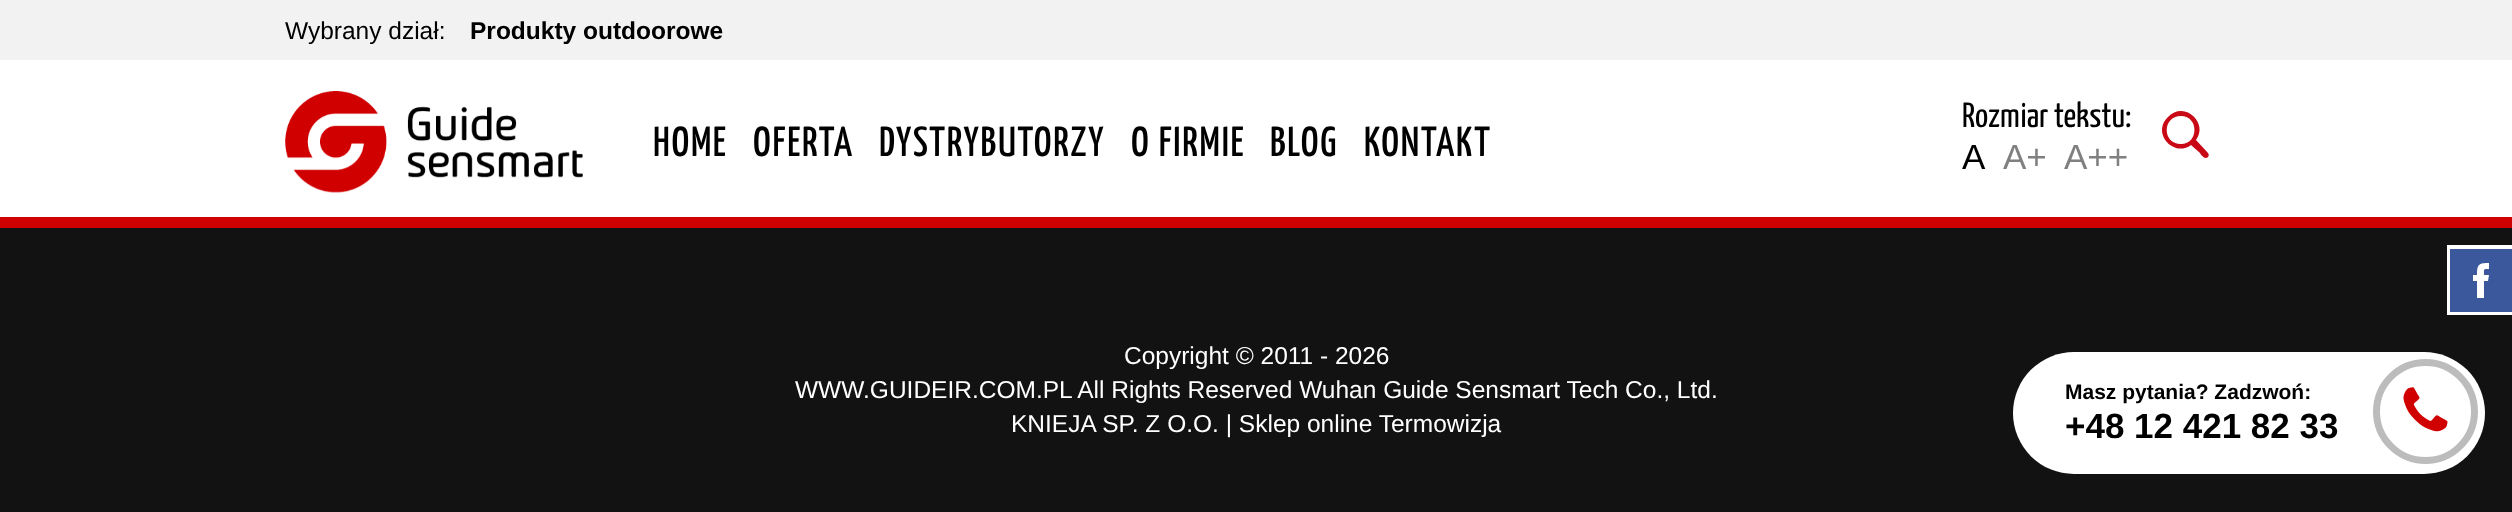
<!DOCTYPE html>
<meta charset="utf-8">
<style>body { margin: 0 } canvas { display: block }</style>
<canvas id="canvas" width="2512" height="512"></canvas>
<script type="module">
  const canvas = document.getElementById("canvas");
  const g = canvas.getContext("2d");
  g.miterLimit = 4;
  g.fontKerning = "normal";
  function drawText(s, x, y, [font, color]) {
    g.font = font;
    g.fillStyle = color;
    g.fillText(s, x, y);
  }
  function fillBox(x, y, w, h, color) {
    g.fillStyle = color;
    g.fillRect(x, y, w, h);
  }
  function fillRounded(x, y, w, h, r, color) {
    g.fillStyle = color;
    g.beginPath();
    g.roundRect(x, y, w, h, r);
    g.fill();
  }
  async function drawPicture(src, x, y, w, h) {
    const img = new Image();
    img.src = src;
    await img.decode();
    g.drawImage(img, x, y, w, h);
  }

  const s1 = ["24.5px Liberation Sans", "#000000"];
  const s2 = ["bold 24.5px Liberation Sans", "#000000"];
  const s3 = ["500 42px Yanone Kaffeesatz", "#000000"];
  const s4 = ["35px Yanone Kaffeesatz", "#000000"];
  const s5 = ["35px Liberation Sans", "#000000"];
  const s6 = ["35px Liberation Sans", "#808080"];
  const s7 = ["24.5px Liberation Sans", "#FFFFFF"];
  const s8 = ["bold 21px Liberation Sans", "#000000"];
  const s9 = ["bold 35px Liberation Sans", "#000000"];

  fillBox(0, 0, 2512, 512, "#121212");
  fillBox(0, 60, 2512, 157, "#FFFFFF");
  fillBox(0, 217, 2512, 11, "#D10000");
  fillBox(0, 0, 2512, 60, "#F2F2F2");
  drawText("Wybrany dział:", 285, 39, s1);
  drawText("Produkty outdoorowe", 470, 39, s2);
  await drawPicture("pic1.png", 285, 91, 298, 102);
  g.letterSpacing = "1.75px";
  drawText("HOME", 653, 156, s3);
  drawText("OFERTA", 753, 156, s3);
  drawText("DYSTRYBUTORZY", 879, 156, s3);
  drawText("O FIRMIE", 1131, 156, s3);
  drawText("BLOG", 1270, 156, s3);
  drawText("KONTAKT", 1364, 156, s3);
  g.letterSpacing = "0px";
  drawText("Rozmiar tekstu:", 1962, 127, s4);
  drawText("A", 1962, 169, s5);
  drawText("A+", 2003, 169, s6);
  drawText("A++", 2064, 169, s6);
  g.fillStyle = "#C90915";
  g.beginPath();
  g.moveTo(2191, 145);
  g.bezierCurveTo(2174, 158, 2151, 133, 2168, 117);
  g.bezierCurveTo(2184, 100, 2209, 123, 2196, 140);
  g.lineTo(2208, 153);
  g.bezierCurveTo(2209, 154, 2209, 156, 2208, 157);
  g.bezierCurveTo(2205, 160, 2201, 155, 2200, 153);
  g.closePath();
  g.moveTo(2181, 144);
  g.bezierCurveTo(2199, 144, 2199, 116, 2181, 116);
  g.bezierCurveTo(2162, 116, 2162, 144, 2181, 144);
  g.closePath();
  g.fill("evenodd");
  fillBox(2447, 245, 65, 70, "#FFFFFF");
  g.fillStyle = "#3A589B";
  g.beginPath();
  g.moveTo(2477, 298);
  g.lineTo(2484, 298);
  g.lineTo(2484, 281);
  g.lineTo(2488, 281);
  g.lineTo(2489, 275);
  g.lineTo(2484, 275);
  g.bezierCurveTo(2484, 269, 2483, 269, 2489, 269);
  g.lineTo(2489, 263);
  g.bezierCurveTo(2479, 263, 2477, 264, 2477, 275);
  g.lineTo(2473, 275);
  g.lineTo(2473, 281);
  g.lineTo(2477, 281);
  g.closePath();
  g.moveTo(2450, 249);
  g.lineTo(2512, 249);
  g.lineTo(2512, 312);
  g.lineTo(2450, 312);
  g.closePath();
  g.fill("evenodd");
  drawText("Copyright © 2011 - 2026", 1124, 364, s7);
  drawText("WWW.GUIDEIR.COM.PL All Rights Reserved Wuhan Guide Sensmart Tech Co., Ltd.", 795, 398, s7);
  drawText("KNIEJA SP. Z O.O. | Sklep online Termowizja", 1011, 432, s7);
  fillRounded(2013, 352, 472, 122, 61, "#FFFFFF");
  drawText("Masz pytania? Zadzwoń:", 2065, 399, s8);
  drawText("+48 12 421 82 33", 2065, 438, s9);
  g.beginPath();
  g.arc(2425.5, 411.5, 49, 0, Math.PI * 2);
  g.strokeStyle = "#BCBCBC";
  g.lineWidth = 7;
  g.stroke();
  await drawPicture("pic2.png", 2403, 387, 45, 45);
</script>
